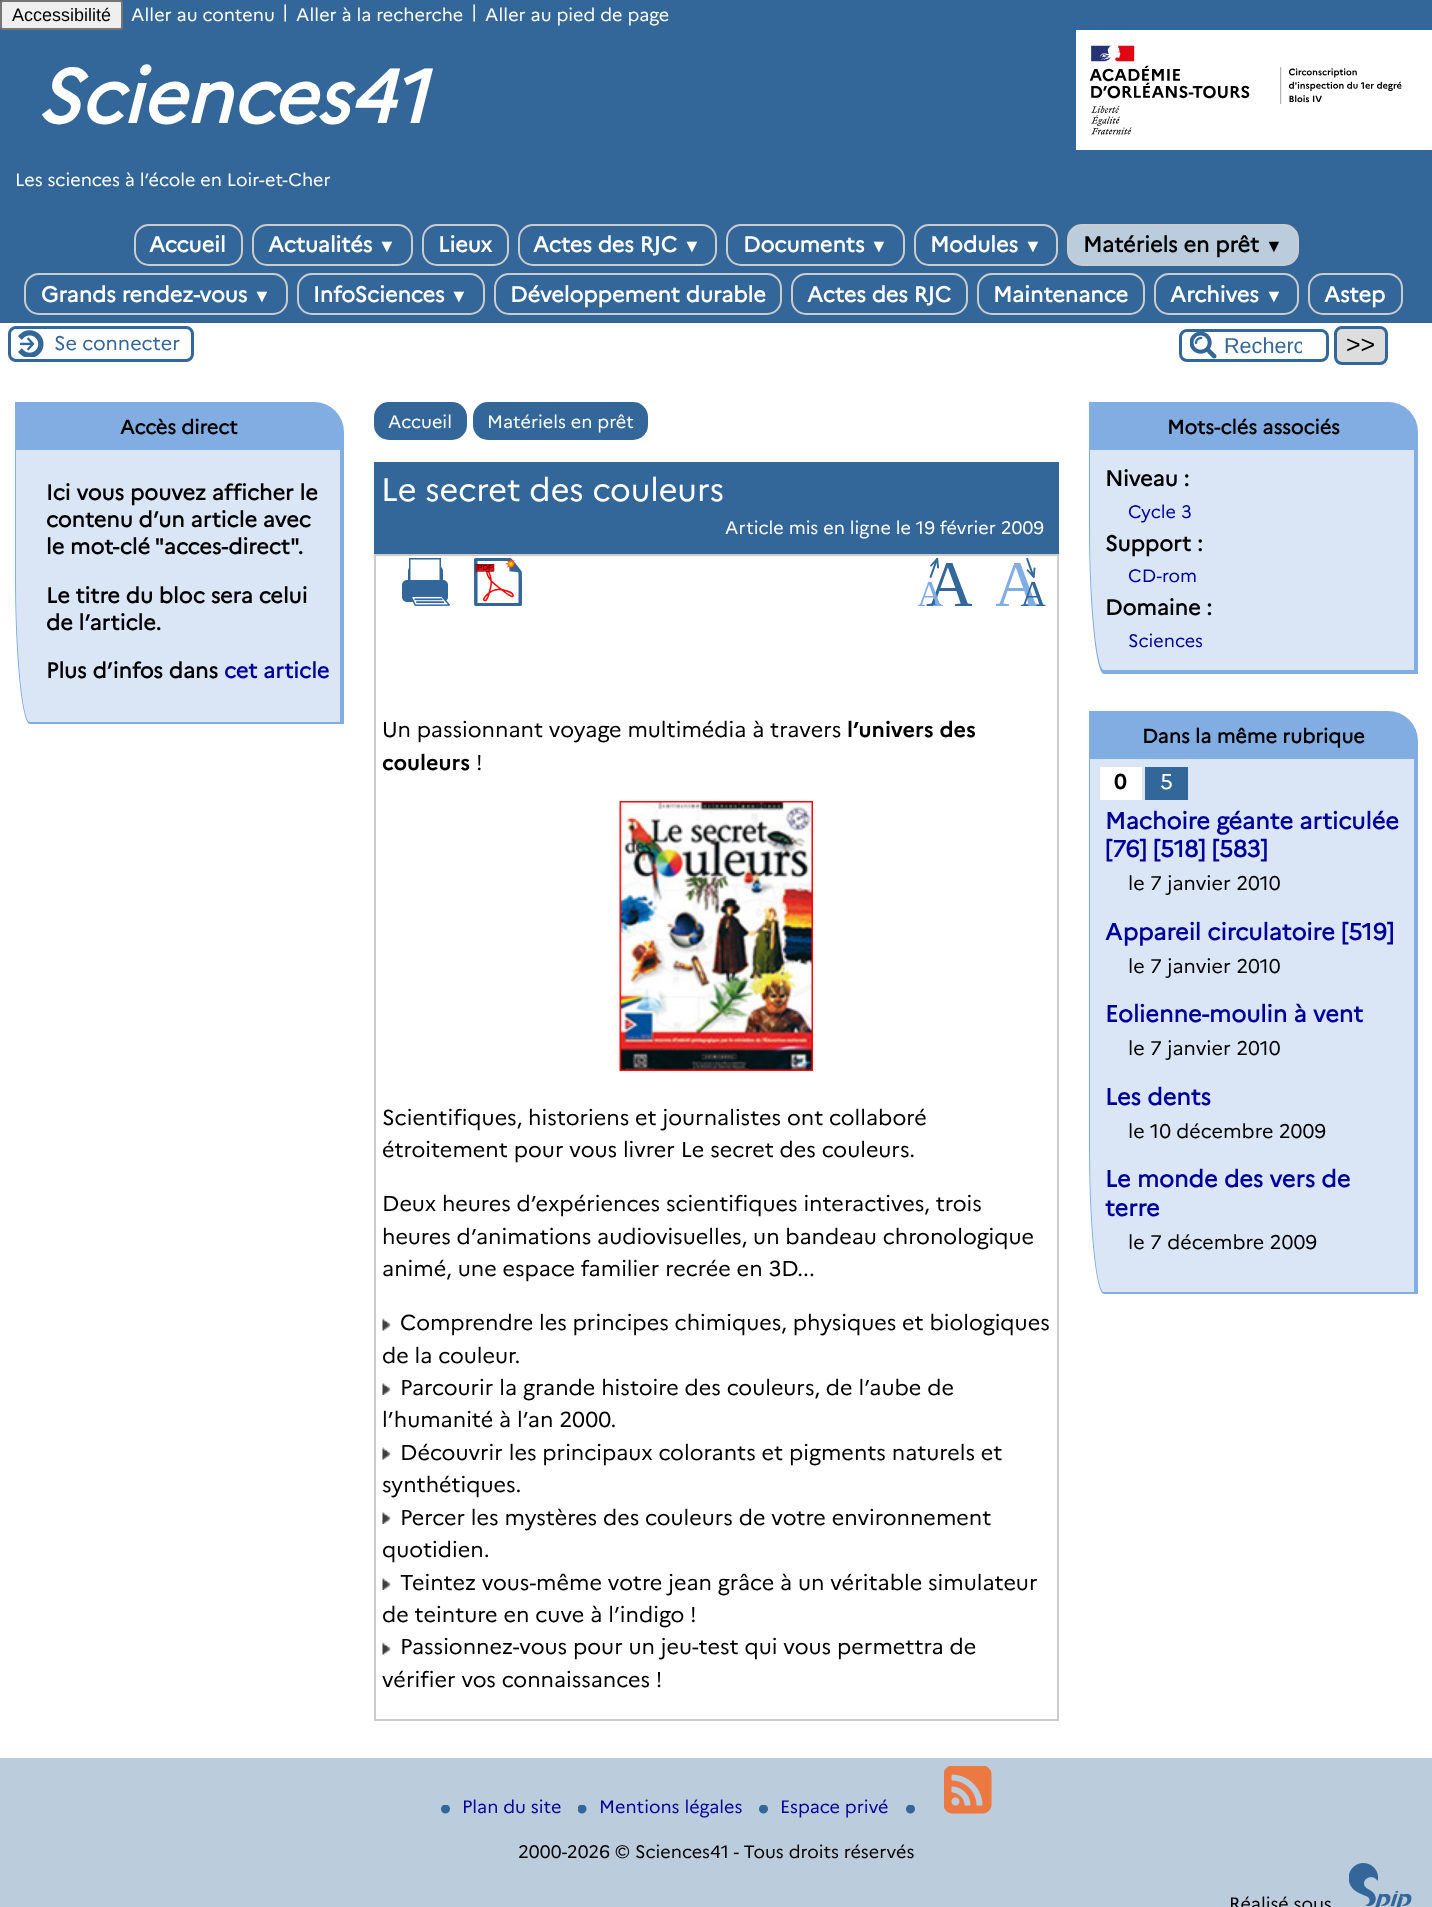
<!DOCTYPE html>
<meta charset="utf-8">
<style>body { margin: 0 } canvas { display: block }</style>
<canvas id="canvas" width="1432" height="1907"></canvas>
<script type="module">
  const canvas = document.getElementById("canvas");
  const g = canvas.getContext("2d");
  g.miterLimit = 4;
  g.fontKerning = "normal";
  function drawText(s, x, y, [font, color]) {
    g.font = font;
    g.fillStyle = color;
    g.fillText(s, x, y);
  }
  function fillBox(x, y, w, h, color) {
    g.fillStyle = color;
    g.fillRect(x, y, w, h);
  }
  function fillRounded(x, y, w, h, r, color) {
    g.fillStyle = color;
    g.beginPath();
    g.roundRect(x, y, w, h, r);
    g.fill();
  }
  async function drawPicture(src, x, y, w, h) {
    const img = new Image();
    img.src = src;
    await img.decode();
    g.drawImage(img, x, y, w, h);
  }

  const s1 = ["18px Liberation Sans", "#000000"];
  const s2 = ["18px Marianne", "#FFFFFF"];
  const s3 = ["italic bold 75px Marianne", "#FFFFFF"];
  const s4 = ["bold 21.6px 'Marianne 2'", "#FFFFFF"];
  const s5 = ["bold 18px Liberation Serif", "#FFFFFF"];
  const s6 = ["bold 21.6px 'Marianne 2'", "#000000"];
  const s7 = ["bold 18px Liberation Serif", "#000000"];
  const s8 = ["19.75px Marianne", "#336699"];
  const s9 = ["21.6px Liberation Sans", "#336699"];
  const s10 = ["25px Liberation Sans", "#000000"];
  const s11 = ["bold 19.75px 'Marianne 2'", "#000000"];
  const s12 = ["bold 21.6px 'Marianne 2'", "#000099"];
  const s13 = ["32.4px Marianne", "#FFFFFF"];
  const s14 = ["21.6px Marianne", "#000000"];
  const s15 = ["bold 21.6px Marianne", "#000000"];
  const s16 = ["18px Marianne", "#000099"];
  const s17 = ["21.6px Marianne", "#FFFFFF"];
  const s18 = ["bold 23.4px 'Marianne 2'", "#000099"];
  const s19 = ["19.75px Marianne", "#000000"];
  const s20 = ["18px Marianne", "#000000"];

  fillBox(0, 0, 1432, 1907, "#FFFFFF");
  fillBox(0, 0, 1432, 323, "#336699");
  g.fillStyle = "#EFEFEF";
  g.beginPath();
  g.roundRect(1, 1, 121, 28, 2);
  g.fill();
  g.strokeStyle = "#767676";
  g.lineWidth = 2;
  g.stroke();
  drawText("Accessibilité", 12, 21, s1);
  drawText("Aller au contenu", 131, 21, s2);
  drawText("|", 282, 18, s2);
  drawText("Aller à la recherche", 296, 21, s2);
  drawText("|", 471, 18, s2);
  drawText("Aller au pied de page", 485, 21, s2);
  drawText("Sciences41", 36, 123, s3);
  drawText("Les sciences à l’école en Loir-et-Cher", 15, 186, s2);
  await drawPicture("pic1.png", 1076, 30, 356, 120);
  g.beginPath();
  g.roundRect(135, 225, 107, 40, 14);
  g.strokeStyle = "#CCCCCC";
  g.stroke();
  drawText("Accueil", 149, 252, s4);
  g.beginPath();
  g.roundRect(253, 225, 159, 40, 14);
  g.stroke();
  drawText("Actualités", 268, 252, s4);
  drawText("▼", 378, 252, s5);
  g.beginPath();
  g.roundRect(423, 225, 85, 40, 14);
  g.stroke();
  drawText("Lieux", 438, 252, s4);
  g.beginPath();
  g.roundRect(519, 225, 197, 40, 14);
  g.stroke();
  drawText("Actes des RJC", 533, 252, s4);
  drawText("▼", 683, 252, s5);
  g.beginPath();
  g.roundRect(727, 225, 177, 40, 14);
  g.stroke();
  drawText("Documents", 743, 252, s4);
  drawText("▼", 870, 252, s5);
  g.beginPath();
  g.roundRect(915, 225, 142, 40, 14);
  g.stroke();
  drawText("Modules", 930, 252, s4);
  drawText("▼", 1024, 252, s5);
  g.fillStyle = "#BBCCDD";
  g.beginPath();
  g.roundRect(1068, 225, 230, 40, 14);
  g.fill();
  g.stroke();
  drawText("Matériels en prêt", 1083, 252, s6);
  drawText("▼", 1265, 252, s7);
  g.beginPath();
  g.roundRect(25, 274, 262, 40, 14);
  g.stroke();
  drawText("Grands rendez-vous", 41, 302, s4);
  drawText("▼", 253, 302, s5);
  g.beginPath();
  g.roundRect(298, 274, 186, 40, 14);
  g.stroke();
  drawText("InfoSciences", 313, 302, s4);
  drawText("▼", 450, 302, s5);
  g.beginPath();
  g.roundRect(495, 274, 286, 40, 14);
  g.stroke();
  drawText("Développement durable", 510, 302, s4);
  g.beginPath();
  g.roundRect(792, 274, 175, 40, 14);
  g.stroke();
  drawText("Actes des RJC", 807, 302, s4);
  g.beginPath();
  g.roundRect(978, 274, 166, 40, 14);
  g.stroke();
  drawText("Maintenance", 993, 302, s4);
  g.beginPath();
  g.roundRect(1155, 274, 143, 40, 14);
  g.stroke();
  drawText("Archives", 1170, 302, s4);
  drawText("▼", 1265, 302, s5);
  g.beginPath();
  g.roundRect(1309, 274, 93, 40, 14);
  g.stroke();
  drawText("Astep", 1324, 302, s4);
  await drawPicture("pic2.png", 18, 330, 26, 27);
  g.beginPath();
  g.roundRect(9.5, 327.5, 183, 33, 6.5);
  g.strokeStyle = "#336699";
  g.lineWidth = 3;
  g.stroke();
  drawText("Se connecter", 54, 350, s8);
  await drawPicture("pic3.png", 1190, 332, 27, 27);
  g.beginPath();
  g.roundRect(1180.5, 330.5, 147, 30, 6.5);
  g.stroke();
  g.save();
  g.beginPath();
  g.rect(1224, 333, 78, 24);
  g.clip();
  drawText("Recherc", 1224, 353, s9);
  g.restore();
  g.fillStyle = "#DDDDDD";
  g.beginPath();
  g.roundRect(1335.5, 327.5, 51, 36, 6.5);
  g.fill();
  g.stroke();
  drawText(">>", 1346, 353, s10);
  g.fillStyle = "#82ADE2";
  g.beginPath();
  g.roundRect(15, 402, 329, 48, [0, 30, 0, 0]);
  g.fill();
  drawText("Accès direct", 120, 434, s11);
  g.fillStyle = "#DAE6F6";
  g.beginPath();
  g.moveTo(16, 450);
  g.lineTo(340, 450);
  g.lineTo(340, 722);
  g.lineTo(30, 722);
  g.bezierCurveTo(23, 722, 16, 656, 16, 574);
  g.closePath();
  g.fill();
  g.fillStyle = "#82ADE2";
  g.beginPath();
  g.moveTo(15, 450);
  g.lineTo(344, 450);
  g.lineTo(344, 724);
  g.lineTo(30, 724);
  g.bezierCurveTo(22, 724, 15, 657, 15, 574);
  g.closePath();
  g.moveTo(16, 450);
  g.lineTo(340, 450);
  g.lineTo(340, 722);
  g.lineTo(30, 722);
  g.bezierCurveTo(23, 722, 16, 656, 16, 574);
  g.closePath();
  g.fill("evenodd");
  drawText("Ici vous pouvez afficher le", 46, 500, s6);
  drawText("contenu d’un article avec", 46, 527, s6);
  drawText("le mot-clé \"acces-direct\".", 46, 554, s6);
  drawText("Le titre du bloc sera celui", 46, 603, s6);
  drawText("de l’article.", 46, 630, s6);
  drawText("Plus d’infos dans", 46, 678, s6);
  drawText("cet article", 224, 678, s12);
  fillRounded(374, 402, 93, 38, 15, "#336699");
  drawText("Accueil", 388, 428, s2);
  fillRounded(473, 402, 175, 38, 15, "#336699");
  drawText("Matériels en prêt", 487, 428, s2);
  fillBox(374, 462, 685, 92, "#336699");
  drawText("Le secret des couleurs", 381, 501, s13);
  drawText("Article mis en ligne le 19 février 2009", 725, 534, s2);
  g.strokeStyle = "#CCCCCC";
  g.lineWidth = 2;
  g.strokeRect(375, 555, 683, 1165);
  await drawPicture("pic4.png", 402, 558, 48, 48);
  await drawPicture("pic5.png", 474, 558, 48, 48);
  await drawPicture("pic6.png", 918, 558, 54, 48);
  await drawPicture("pic7.png", 996, 558, 50, 48);
  drawText("Un passionnant voyage multimédia à travers", 382, 737, s14);
  drawText("l’univers des", 847, 737, s15);
  drawText("couleurs", 382, 770, s15);
  drawText("!", 476, 770, s14);
  await drawPicture("pic8.png", 619, 801, 194, 270);
  drawText("Scientifiques, historiens et journalistes ont collaboré", 382, 1125, s14);
  drawText("étroitement pour vous livrer Le secret des couleurs.", 382, 1157, s14);
  drawText("Deux heures d’expériences scientifiques interactives, trois", 382, 1211, s14);
  drawText("heures d’animations audiovisuelles, un bandeau chronologique", 382, 1244, s14);
  drawText("animé, une espace familier recrée en 3D...", 382, 1276, s14);
  await drawPicture("pic9.png", 382, 1318, 9, 13);
  drawText("Comprendre les principes chimiques, physiques et biologiques", 400, 1330, s14);
  drawText("de la couleur.", 382, 1363, s14);
  await drawPicture("pic10.png", 382, 1382, 9, 13);
  drawText("Parcourir la grande histoire des couleurs, de l’aube de", 400, 1395, s14);
  drawText("l’humanité à l’an 2000.", 382, 1427, s14);
  await drawPicture("pic9.png", 382, 1447, 9, 13);
  drawText("Découvrir les principaux colorants et pigments naturels et", 400, 1460, s14);
  drawText("synthétiques.", 382, 1492, s14);
  await drawPicture("pic10.png", 382, 1511, 9, 13);
  drawText("Percer les mystères des couleurs de votre environnement", 400, 1525, s14);
  drawText("quotidien.", 382, 1557, s14);
  await drawPicture("pic10.png", 382, 1577, 9, 13);
  drawText("Teintez vous-même votre jean grâce à un véritable simulateur", 400, 1590, s14);
  drawText("de teinture en cuve à l’indigo !", 382, 1622, s14);
  await drawPicture("pic9.png", 382, 1642, 9, 13);
  drawText("Passionnez-vous pour un jeu-test qui vous permettra de", 400, 1654, s14);
  drawText("vérifier vos connaissances !", 382, 1687, s14);
  g.fillStyle = "#82ADE2";
  g.beginPath();
  g.roundRect(1089, 402, 329, 48, [0, 30, 0, 0]);
  g.fill();
  drawText("Mots-clés associés", 1167, 434, s11);
  g.fillStyle = "#DAE6F6";
  g.beginPath();
  g.moveTo(1090, 450);
  g.lineTo(1414, 450);
  g.lineTo(1414, 670);
  g.lineTo(1104, 670);
  g.bezierCurveTo(1097, 670, 1090, 605, 1090, 524);
  g.closePath();
  g.fill();
  g.fillStyle = "#82ADE2";
  g.beginPath();
  g.moveTo(1089, 450);
  g.lineTo(1418, 450);
  g.lineTo(1418, 674);
  g.lineTo(1104, 674);
  g.bezierCurveTo(1096, 674, 1089, 606, 1089, 524);
  g.closePath();
  g.moveTo(1090, 450);
  g.lineTo(1414, 450);
  g.lineTo(1414, 670);
  g.lineTo(1104, 670);
  g.bezierCurveTo(1097, 670, 1090, 605, 1090, 524);
  g.closePath();
  g.fill("evenodd");
  drawText("Niveau :", 1105, 486, s6);
  drawText("Cycle 3", 1128, 518, s16);
  drawText("Support :", 1105, 551, s6);
  drawText("CD-rom", 1128, 582, s16);
  drawText("Domaine :", 1105, 615, s6);
  drawText("Sciences", 1128, 647, s16);
  g.fillStyle = "#82ADE2";
  g.beginPath();
  g.roundRect(1089, 711, 329, 48, [0, 30, 0, 0]);
  g.fill();
  drawText("Dans la même rubrique", 1142, 743, s11);
  g.fillStyle = "#DAE6F6";
  g.beginPath();
  g.moveTo(1090, 759);
  g.lineTo(1414, 759);
  g.lineTo(1414, 1292);
  g.lineTo(1104, 1292);
  g.bezierCurveTo(1097, 1292, 1090, 1226, 1090, 1144);
  g.closePath();
  g.fill();
  g.fillStyle = "#82ADE2";
  g.beginPath();
  g.moveTo(1089, 759);
  g.lineTo(1418, 759);
  g.lineTo(1418, 1294);
  g.lineTo(1104, 1294);
  g.bezierCurveTo(1096, 1294, 1089, 1227, 1089, 1144);
  g.closePath();
  g.moveTo(1090, 759);
  g.lineTo(1414, 759);
  g.lineTo(1414, 1292);
  g.lineTo(1104, 1292);
  g.bezierCurveTo(1097, 1292, 1090, 1226, 1090, 1144);
  g.closePath();
  g.fill("evenodd");
  fillBox(1100, 767, 42, 33, "#FFFFFF");
  drawText("0", 1114, 789, s15);
  fillBox(1145, 767, 43, 33, "#336699");
  drawText("5", 1160, 789, s17);
  drawText("Machoire géante articulée", 1105, 829, s18);
  drawText("[76] [518] [583]", 1105, 857, s18);
  drawText("le 7 janvier 2010", 1128, 890, s19);
  drawText("Appareil circulatoire [519]", 1105, 940, s18);
  drawText("le 7 janvier 2010", 1128, 973, s19);
  drawText("Eolienne-moulin à vent", 1105, 1022, s18);
  drawText("le 7 janvier 2010", 1128, 1055, s19);
  drawText("Les dents", 1105, 1105, s18);
  drawText("le 10 décembre 2009", 1128, 1138, s19);
  drawText("Le monde des vers de", 1105, 1187, s18);
  drawText("terre", 1105, 1216, s18);
  drawText("le 7 décembre 2009", 1128, 1249, s19);
  fillBox(0, 1758, 1432, 149, "#BBCCDD");
  await drawPicture("pic11.png", 441, 1805, 9, 9);
  drawText("Plan du site", 462, 1813, s16);
  await drawPicture("pic12.png", 578, 1805, 9, 9);
  drawText("Mentions légales", 599, 1813, s16);
  await drawPicture("pic11.png", 759, 1805, 9, 9);
  drawText("Espace privé", 780, 1813, s16);
  await drawPicture("pic11.png", 906, 1805, 9, 9);
  await drawPicture("pic13.png", 944, 1766, 48, 48);
  drawText("2000-2026 © Sciences41 - Tous droits réservés", 518, 1858, s20);
  drawText("Réalisé sous", 1229, 1910, s20);
  await drawPicture("pic14.png", 1349, 1863, 63, 44);
</script>
